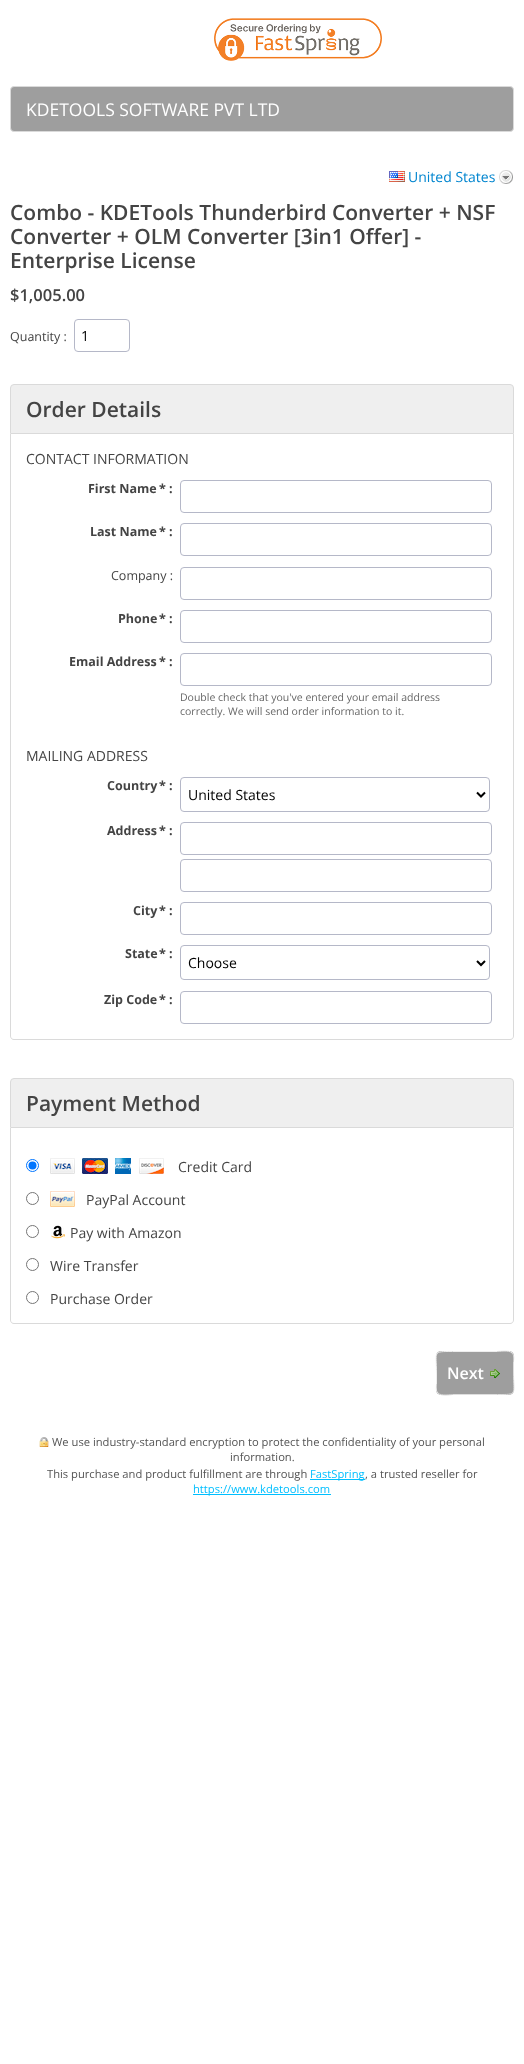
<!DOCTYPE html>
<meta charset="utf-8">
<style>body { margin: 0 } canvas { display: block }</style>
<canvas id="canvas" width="524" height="2064"></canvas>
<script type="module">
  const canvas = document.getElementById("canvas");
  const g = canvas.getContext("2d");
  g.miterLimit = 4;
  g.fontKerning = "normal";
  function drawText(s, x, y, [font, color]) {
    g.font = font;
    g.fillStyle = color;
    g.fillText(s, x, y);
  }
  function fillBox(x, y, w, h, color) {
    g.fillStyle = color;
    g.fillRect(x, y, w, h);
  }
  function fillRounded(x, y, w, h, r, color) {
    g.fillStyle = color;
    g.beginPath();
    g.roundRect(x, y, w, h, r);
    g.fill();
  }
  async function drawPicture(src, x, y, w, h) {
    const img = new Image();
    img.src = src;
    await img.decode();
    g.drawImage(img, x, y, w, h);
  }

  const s1 = ["17.5px Open Sans", "#FFFFFF"];
  const s2 = ["14px Open Sans", "#0085CF"];
  const s3 = ["600 21px Open Sans", "#444444"];
  const s4 = ["600 16.5px Open Sans", "#444444"];
  const s5 = ["12.5px Open Sans", "#444444"];
  const s6 = ["14px Open Sans", "#000000"];
  const s7 = ["14px Open Sans", "#444444"];
  const s8 = ["bold 12.5px Open Sans", "#444444"];
  const s9 = ["10.5px Open Sans", "#666666"];
  const s10 = ["600 16px Open Sans", "#FFFFFF"];
  const s11 = ["11.2px Open Sans", "#555555"];
  const s12 = ["11.2px Open Sans", "#00BFFF"];

  fillBox(0, 0, 524, 2064, "#FFFFFF");
  await drawPicture("pic1.png", 214, 18, 168, 43);
  g.fillStyle = "#9E9E9E";
  g.beginPath();
  g.roundRect(10.5, 86.5, 503, 45, 3.5);
  g.fill();
  g.strokeStyle = "#DADADA";
  g.stroke();
  drawText("KDETOOLS SOFTWARE PVT LTD", 26, 116, s1);
  await drawPicture("pic2.png", 389, 171, 16, 11);
  drawText("United States", 408, 182, s2);
  await drawPicture("pic3.png", 499, 170, 14, 14);
  drawText("Combo - KDETools Thunderbird Converter + NSF", 10, 220, s3);
  drawText("Converter + OLM Converter [3in1 Offer] -", 10, 244, s3);
  drawText("Enterprise License", 10, 268, s3);
  drawText("$1,005.00", 10, 301, s4);
  drawText("Quantity :", 10, 341, s5);
  g.beginPath();
  g.roundRect(74.5, 319.5, 55, 32, 3.5);
  g.strokeStyle = "#B5B8C8";
  g.stroke();
  drawText("1", 81, 341, s6);
  g.fillStyle = "#EFEFEF";
  g.beginPath();
  g.roundRect(10.5, 384.5, 503, 49, [3.5, 3.5, 0, 0]);
  g.fill();
  g.strokeStyle = "#DADADA";
  g.stroke();
  drawText("Order Details", 26, 417, s3);
  g.fillStyle = "#DADADA";
  g.beginPath();
  g.moveTo(10, 434);
  g.lineTo(514, 434);
  g.lineTo(514, 1036);
  g.bezierCurveTo(514, 1038, 512, 1040, 510, 1040);
  g.lineTo(14, 1040);
  g.bezierCurveTo(12, 1040, 10, 1038, 10, 1036);
  g.closePath();
  g.moveTo(11, 434);
  g.lineTo(513, 434);
  g.lineTo(513, 1036);
  g.bezierCurveTo(513, 1038, 512, 1039, 510, 1039);
  g.lineTo(14, 1039);
  g.bezierCurveTo(12, 1039, 11, 1038, 11, 1036);
  g.closePath();
  g.fill("evenodd");
  drawText("CONTACT INFORMATION", 26, 464, s7);
  drawText("First Name", 88, 493, s8);
  drawText("* :", 159, 493, s8);
  g.beginPath();
  g.roundRect(180.5, 480.5, 311, 32, 3.5);
  g.strokeStyle = "#B5B8C8";
  g.stroke();
  drawText("Last Name", 90, 536, s8);
  drawText("* :", 159, 536, s8);
  g.beginPath();
  g.roundRect(180.5, 523.5, 311, 32, 3.5);
  g.stroke();
  drawText("Company :", 111, 580, s5);
  g.beginPath();
  g.roundRect(180.5, 567.5, 311, 32, 3.5);
  g.stroke();
  drawText("Phone", 118, 623, s8);
  drawText("* :", 159, 623, s8);
  g.beginPath();
  g.roundRect(180.5, 610.5, 311, 32, 3.5);
  g.stroke();
  drawText("Email Address", 69, 666, s8);
  drawText("* :", 159, 666, s8);
  g.beginPath();
  g.roundRect(180.5, 653.5, 311, 32, 3.5);
  g.stroke();
  drawText("Double check that you've entered your email address", 180, 701, s9);
  drawText("correctly. We will send order information to it.", 180, 715, s9);
  drawText("MAILING ADDRESS", 26, 761, s7);
  drawText("Country", 107, 790, s8);
  drawText("* :", 159, 790, s8);
  g.beginPath();
  g.roundRect(180.5, 777.5, 309, 34, 3.5);
  g.stroke();
  g.beginPath();
  g.moveTo(477, 792.5);
  g.lineTo(481, 796.5);
  g.lineTo(485, 792.5);
  g.strokeStyle = "#000000";
  g.lineWidth = 2;
  g.stroke();
  drawText("United States", 188, 800, s6);
  drawText("Address", 107, 835, s8);
  drawText("* :", 159, 835, s8);
  g.beginPath();
  g.roundRect(180.5, 822.5, 311, 32, 3.5);
  g.strokeStyle = "#B5B8C8";
  g.lineWidth = 1;
  g.stroke();
  g.beginPath();
  g.roundRect(180.5, 859.5, 311, 32, 3.5);
  g.stroke();
  drawText("City", 133, 915, s8);
  drawText("* :", 159, 915, s8);
  g.beginPath();
  g.roundRect(180.5, 902.5, 311, 32, 3.5);
  g.stroke();
  drawText("State", 125, 958, s8);
  drawText("* :", 159, 958, s8);
  g.beginPath();
  g.roundRect(180.5, 945.5, 309, 34, 3.5);
  g.stroke();
  g.beginPath();
  g.moveTo(477, 961);
  g.lineTo(481, 965);
  g.lineTo(485, 961);
  g.strokeStyle = "#000000";
  g.lineWidth = 2;
  g.stroke();
  drawText("Choose", 188, 968, s6);
  drawText("Zip Code", 104, 1004, s8);
  drawText("* :", 159, 1004, s8);
  g.beginPath();
  g.roundRect(180.5, 991.5, 311, 32, 3.5);
  g.strokeStyle = "#B5B8C8";
  g.lineWidth = 1;
  g.stroke();
  g.fillStyle = "#EFEFEF";
  g.beginPath();
  g.roundRect(10.5, 1078.5, 503, 49, [3.5, 3.5, 0, 0]);
  g.fill();
  g.strokeStyle = "#DADADA";
  g.stroke();
  drawText("Payment Method", 26, 1111, s3);
  g.fillStyle = "#DADADA";
  g.beginPath();
  g.moveTo(10, 1128);
  g.lineTo(514, 1128);
  g.lineTo(514, 1320);
  g.bezierCurveTo(514, 1322, 512, 1324, 510, 1324);
  g.lineTo(14, 1324);
  g.bezierCurveTo(12, 1324, 10, 1322, 10, 1320);
  g.closePath();
  g.moveTo(11, 1128);
  g.lineTo(513, 1128);
  g.lineTo(513, 1320);
  g.bezierCurveTo(513, 1322, 512, 1323, 510, 1323);
  g.lineTo(14, 1323);
  g.bezierCurveTo(12, 1323, 11, 1322, 11, 1320);
  g.closePath();
  g.fill("evenodd");
  g.beginPath();
  g.arc(32.5, 1165.5, 6, 0, Math.PI * 2);
  g.strokeStyle = "#0075FF";
  g.stroke();
  g.fillStyle = "#0075FF";
  g.beginPath();
  g.arc(32.5, 1165.5, 4, 0, Math.PI * 2);
  g.fill();
  await drawPicture("pic4.png", 50, 1158, 25, 16);
  await drawPicture("pic5.png", 82, 1158, 26, 16);
  await drawPicture("pic6.png", 115, 1158, 16, 16);
  await drawPicture("pic7.png", 139, 1158, 25, 16);
  drawText("Credit Card", 178, 1172, s7);
  g.beginPath();
  g.arc(32.5, 1198.5, 6, 0, Math.PI * 2);
  g.strokeStyle = "#767676";
  g.stroke();
  await drawPicture("pic8.png", 50, 1191, 25, 16);
  drawText("PayPal Account", 86, 1205, s7);
  g.beginPath();
  g.arc(32.5, 1231.5, 6, 0, Math.PI * 2);
  g.stroke();
  await drawPicture("pic9.png", 51, 1225, 15, 14);
  drawText("Pay with Amazon", 70, 1238, s7);
  g.beginPath();
  g.arc(32.5, 1264.5, 6, 0, Math.PI * 2);
  g.stroke();
  drawText("Wire Transfer", 50, 1271, s7);
  g.beginPath();
  g.arc(32.5, 1297.5, 6, 0, Math.PI * 2);
  g.stroke();
  drawText("Purchase Order", 50, 1304, s7);
  fillRounded(436, 1351, 78, 44, 5, "#9E9E9E");
  g.beginPath();
  g.moveTo(512, 1353);
  g.bezierCurveTo(514.5, 1355, 513.5, 1359, 513.5, 1361.5);
  g.lineTo(513.5, 1373);
  g.bezierCurveTo(513.5, 1395, 518, 1394.5, 497.5, 1394.5);
  g.lineTo(452.5, 1394.5);
  g.bezierCurveTo(451.5, 1394.5, 441, 1396.5, 438, 1393);
  g.strokeStyle = "#DEDEDE";
  g.stroke();
  g.beginPath();
  g.moveTo(438, 1393);
  g.bezierCurveTo(435.5, 1391, 436.5, 1387, 436.5, 1384.5);
  g.lineTo(436.5, 1373);
  g.bezierCurveTo(436.5, 1351, 432, 1351.5, 452.5, 1351.5);
  g.lineTo(497.5, 1351.5);
  g.bezierCurveTo(498.5, 1351.5, 509, 1349.5, 512, 1353);
  g.strokeStyle = "#EEEEEE";
  g.stroke();
  drawText("Next", 447, 1379, s10);
  await drawPicture("pic10.png", 490, 1369, 10, 10);
  await drawPicture("pic11.png", 39, 1437, 10, 10);
  drawText("We use industry-standard encryption to protect the confidentiality of your personal", 52, 1446, s11);
  drawText("information.", 230, 1461, s11);
  drawText("This purchase and product fulfillment are through", 47, 1478, s11);
  fillBox(310, 1479, 55, 1, "#00BFFF");
  drawText("FastSpring", 310, 1478, s12);
  drawText(", a trusted reseller for", 365, 1478, s11);
  fillBox(193, 1494, 138, 1, "#00BFFF");
  drawText("https://www.kdetools.com", 193, 1493, s12);
</script>
